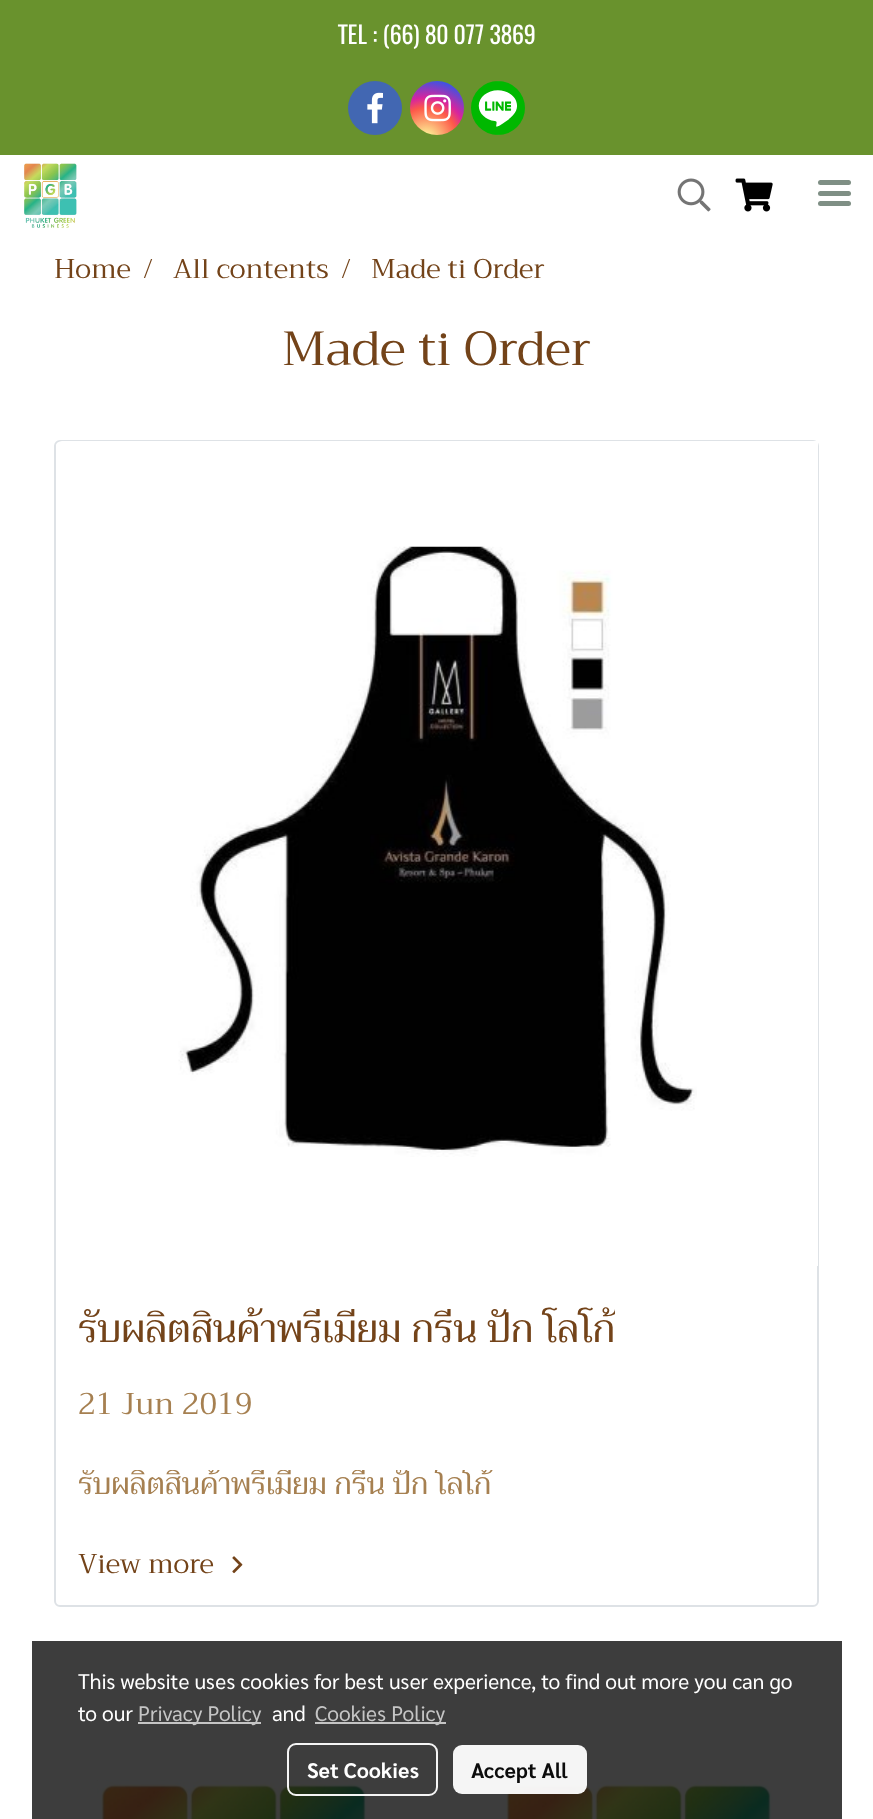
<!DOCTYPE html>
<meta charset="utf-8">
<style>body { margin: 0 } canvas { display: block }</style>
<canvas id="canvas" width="873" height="1819"></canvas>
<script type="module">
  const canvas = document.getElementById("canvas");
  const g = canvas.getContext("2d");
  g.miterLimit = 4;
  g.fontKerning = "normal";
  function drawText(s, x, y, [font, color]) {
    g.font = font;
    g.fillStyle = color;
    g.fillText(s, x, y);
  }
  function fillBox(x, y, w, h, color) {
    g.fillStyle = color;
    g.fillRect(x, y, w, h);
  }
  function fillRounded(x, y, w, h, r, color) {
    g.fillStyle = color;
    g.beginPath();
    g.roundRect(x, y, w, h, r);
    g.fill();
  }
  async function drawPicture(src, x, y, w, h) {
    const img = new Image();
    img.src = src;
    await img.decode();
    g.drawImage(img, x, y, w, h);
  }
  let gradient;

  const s1 = ["24px Oswald", "#FFFFFF"];
  const s2 = ["27px Trirong", "#734319"];
  const s3 = ["48px Trirong", "#734319"];
  const s4 = ["39px Trirong", "#734319"];
  const s5 = ["30px Trirong", "#A68051"];
  const s6 = ["21px Sarabun", "#FFFFFF"];
  const s7 = ["21px Sarabun", "#C5C5C5"];
  const s8 = ["bold 21px Sarabun", "#FFFFFF"];
  const s9 = ["bold 21px Sarabun", "#0C0C0C"];

  fillBox(0, 0, 873, 1819, "#FFFFFF");
  fillBox(32, 1641, 810, 178, "#3D3D3D");
  fillBox(0, 0, 873, 155, "#69922D");
  drawText("TEL : (66) 80 077 3869", 338, 44, s1);
  g.fillStyle = "#4267B2";
  g.beginPath();
  g.arc(375, 108, 27, 0, Math.PI * 2);
  g.fill();
  await drawPicture("pic1.png", 367, 92, 16, 32);
  gradient = g.createRadialGradient(426, 139, 0, 426, 139, 69);
  gradient.addColorStop(0, "#FDF497");
  gradient.addColorStop(0.05, "#FDF497");
  gradient.addColorStop(0.45, "#FD5949");
  gradient.addColorStop(0.6, "#D6249F");
  gradient.addColorStop(0.9, "#285AEB");
  g.fillStyle = gradient;
  g.beginPath();
  g.arc(437, 108, 27, 0, Math.PI * 2);
  g.fill();
  await drawPicture("pic2.png", 424, 94, 27, 28);
  g.fillStyle = "#00B800";
  g.beginPath();
  g.arc(498, 108, 27, 0, Math.PI * 2);
  g.fill();
  await drawPicture("pic3.png", 478, 81, 39, 54);
  await drawPicture("pic4.png", 24, 163, 53, 65);
  await drawPicture("pic5.png", 677, 178, 34, 34);
  await drawPicture("pic6.png", 735, 178, 38, 34);
  fillRounded(818, 191, 33, 5, 2.5, "#7F8F85");
  fillRounded(818, 180, 33, 5, 2.5, "#7F8F85");
  fillRounded(818, 201, 33, 5, 2.5, "#7F8F85");
  drawText("Home", 54, 278, s2);
  drawText("/", 143, 278, s2);
  drawText("All contents", 173, 278, s2);
  drawText("/", 341, 278, s2);
  drawText("Made ti Order", 371, 278, s2);
  drawText("Made ti Order", 282, 365, s3);
  g.beginPath();
  g.roundRect(55, 441, 763, 1165, 5);
  g.strokeStyle = "#DEE2E6";
  g.lineWidth = 2;
  g.stroke();
  g.fillStyle = "#FFFFFF";
  g.beginPath();
  g.roundRect(56, 441, 762, 825, [6, 0, 0, 6]);
  g.fill();
  await drawPicture("pic7.png", 178, 546, 519, 611);
  g.save();
  g.beginPath();
  g.rect(78, 1296, 537, 68);
  g.clip();
  drawText("รับผลิตสินค้าพรีเมียม กรีน ปัก โลโก้", 78, 1342, s4);
  g.restore();
  drawText("21 Jun 2019", 78, 1414, s5);
  g.save();
  g.beginPath();
  g.rect(78, 1470, 537, 53);
  g.clip();
  drawText("รับผลิตสินค้าพรีเมียม กรีน ปัก โลโก้", 78, 1494, s5);
  g.restore();
  drawText("View more", 78, 1573, s2);
  await drawPicture("pic8.png", 232, 1556, 11, 18);
  await drawPicture("pic9.png", 97, 1780, 271, 39);
  await drawPicture("pic9.png", 502, 1780, 271, 39);
  drawText("This website uses cookies for best user experience, to find out more you can go", 78, 1689, s6);
  drawText("to our", 78, 1721, s6);
  fillBox(138, 1722, 123, 2, "#C5C5C5");
  drawText("Privacy Policy", 138, 1721, s7);
  drawText("and", 272, 1721, s6);
  fillBox(315, 1722, 131, 2, "#C5C5C5");
  drawText("Cookies Policy", 315, 1721, s7);
  g.beginPath();
  g.roundRect(288, 1744, 149, 51, 8);
  g.strokeStyle = "rgba(255, 255, 255, 0.95)";
  g.stroke();
  drawText("Set Cookies", 307, 1778, s8);
  fillRounded(453, 1745, 134, 49, 9, "rgba(255, 255, 255, 0.95)");
  drawText("Accept All", 471, 1778, s9);
</script>
